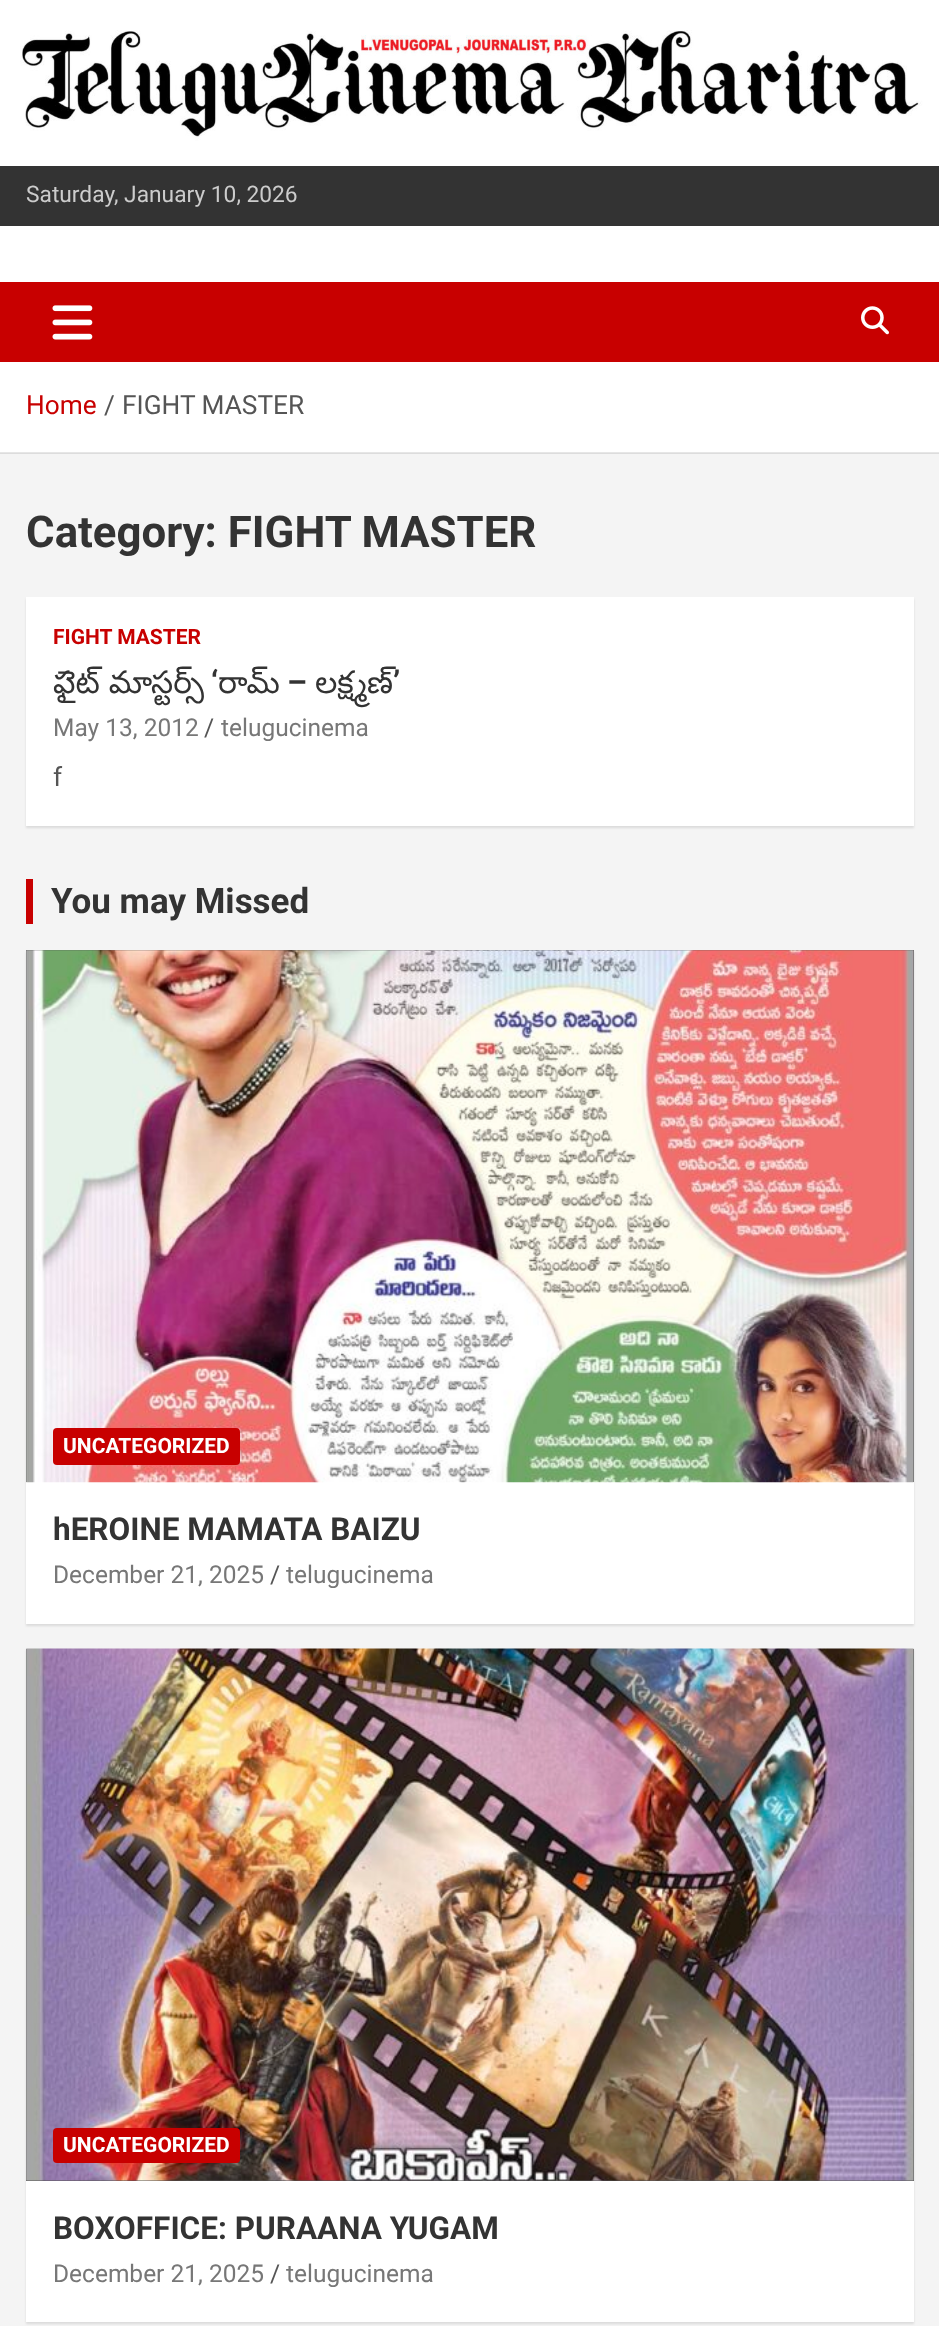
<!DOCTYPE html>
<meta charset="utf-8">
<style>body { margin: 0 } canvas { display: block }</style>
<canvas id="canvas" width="939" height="2326"></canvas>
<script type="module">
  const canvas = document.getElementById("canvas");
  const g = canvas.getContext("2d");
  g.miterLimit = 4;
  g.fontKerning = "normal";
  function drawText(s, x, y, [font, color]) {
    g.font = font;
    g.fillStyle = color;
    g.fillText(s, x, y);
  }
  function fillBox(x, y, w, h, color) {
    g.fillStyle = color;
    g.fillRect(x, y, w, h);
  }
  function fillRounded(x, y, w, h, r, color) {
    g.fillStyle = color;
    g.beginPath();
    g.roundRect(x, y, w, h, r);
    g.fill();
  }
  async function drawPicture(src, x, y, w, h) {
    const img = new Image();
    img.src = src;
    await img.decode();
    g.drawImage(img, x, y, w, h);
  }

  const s1 = ["22.75px Roboto", "#CCCCCC"];
  const s2 = ["26.25px Roboto", "#C80000"];
  const s3 = ["26.25px Roboto", "#555555"];
  const s4 = ["bold 43.75px Roboto", "#333333"];
  const s5 = ["bold 21px Roboto", "#C80000"];
  const s6 = ["31.5px Noto Sans Telugu", "#333333"];
  const s7 = ["bold 31.5px Roboto", "#333333"];
  const s8 = ["24.5px Roboto", "#777777"];
  const s9 = ["24.5px Roboto", "#555555"];
  const s10 = ["bold 35px Roboto", "#333333"];
  const s11 = ["bold 21px Roboto", "#FFFFFF"];

  fillBox(0, 0, 939, 2326, "#F4F4F4");
  fillBox(0, 453, 939, 1, "#DCDCDC");
  await drawPicture("pic1.png", 0, 0, 939, 166);
  fillBox(0, 166, 939, 60, "#333333");
  drawText("Saturday, January 10, 2026", 26, 202, s1);
  fillBox(0, 226, 939, 56, "#FFFFFF");
  fillBox(0, 282, 939, 80, "#C80000");
  await drawPicture("pic2.png", 52, 305, 41, 35);
  await drawPicture("pic3.png", 861, 306, 28, 29);
  fillBox(0, 362, 939, 90, "#FFFFFF");
  fillBox(0, 452, 939, 1, "#E6E6E6");
  drawText("Home", 26, 414, s2);
  drawText("/", 104, 414, s3);
  drawText("FIGHT MASTER", 122, 414, s3);
  drawText("Category: FIGHT MASTER", 26, 547, s4);
  g.fillStyle = "rgba(0, 0, 0, 0.1)";
  g.filter = "blur(1px)";
  g.beginPath();
  g.rect(26, 599, 888, 229);
  g.fill();
  g.filter = "none";
  fillBox(26, 597, 888, 229, "#FFFFFF");
  drawText("FIGHT MASTER", 53, 644, s5);
  drawText("ఫైట్ మాస్టర్స్", 53, 693, s6);
  drawText("‘", 211, 693, s7);
  drawText("రామ్", 218, 693, s6);
  drawText("లక్ష్మణ్", 315, 693, s6);
  drawText("’", 393, 693, s7);
  drawText("–", 287, 693, s7);
  drawText("May 13, 2012", 53, 736, s8);
  drawText("/", 204, 736, s9);
  drawText("telugucinema", 221, 736, s8);
  drawText("f", 53, 786, s3);
  fillBox(26, 879, 7, 45, "#C80000");
  drawText("You may Missed", 51, 913, s10);
  g.fillStyle = "rgba(0, 0, 0, 0.1)";
  g.filter = "blur(1px)";
  g.beginPath();
  g.rect(26, 952, 888, 674);
  g.fill();
  g.filter = "none";
  fillBox(26, 1482, 888, 142, "#FFFFFF");
  fillBox(26, 950, 888, 532, "#555555");
  await drawPicture("pic4.png", 26, 950, 888, 533);
  fillRounded(53, 1428, 187, 37, 4, "#C80000");
  drawText("UNCATEGORIZED", 63, 1453, s11);
  drawText("hEROINE MAMATA BAIZU", 53, 1540, s7);
  drawText("December 21, 2025", 53, 1583, s8);
  drawText("/", 270, 1583, s9);
  drawText("telugucinema", 286, 1583, s8);
  g.fillStyle = "rgba(0, 0, 0, 0.1)";
  g.filter = "blur(1px)";
  g.beginPath();
  g.rect(26, 1650, 888, 674);
  g.fill();
  g.filter = "none";
  fillBox(26, 2181, 888, 141, "#FFFFFF");
  fillBox(26, 1649, 888, 532, "#555555");
  await drawPicture("pic5.png", 26, 1648, 888, 533);
  fillRounded(53, 2128, 187, 35, 4, "#C80000");
  drawText("UNCATEGORIZED", 63, 2152, s11);
  drawText("BOXOFFICE: PURAANA YUGAM", 53, 2239, s7);
  drawText("December 21, 2025", 53, 2282, s8);
  drawText("/", 270, 2282, s9);
  drawText("telugucinema", 286, 2282, s8);
</script>
